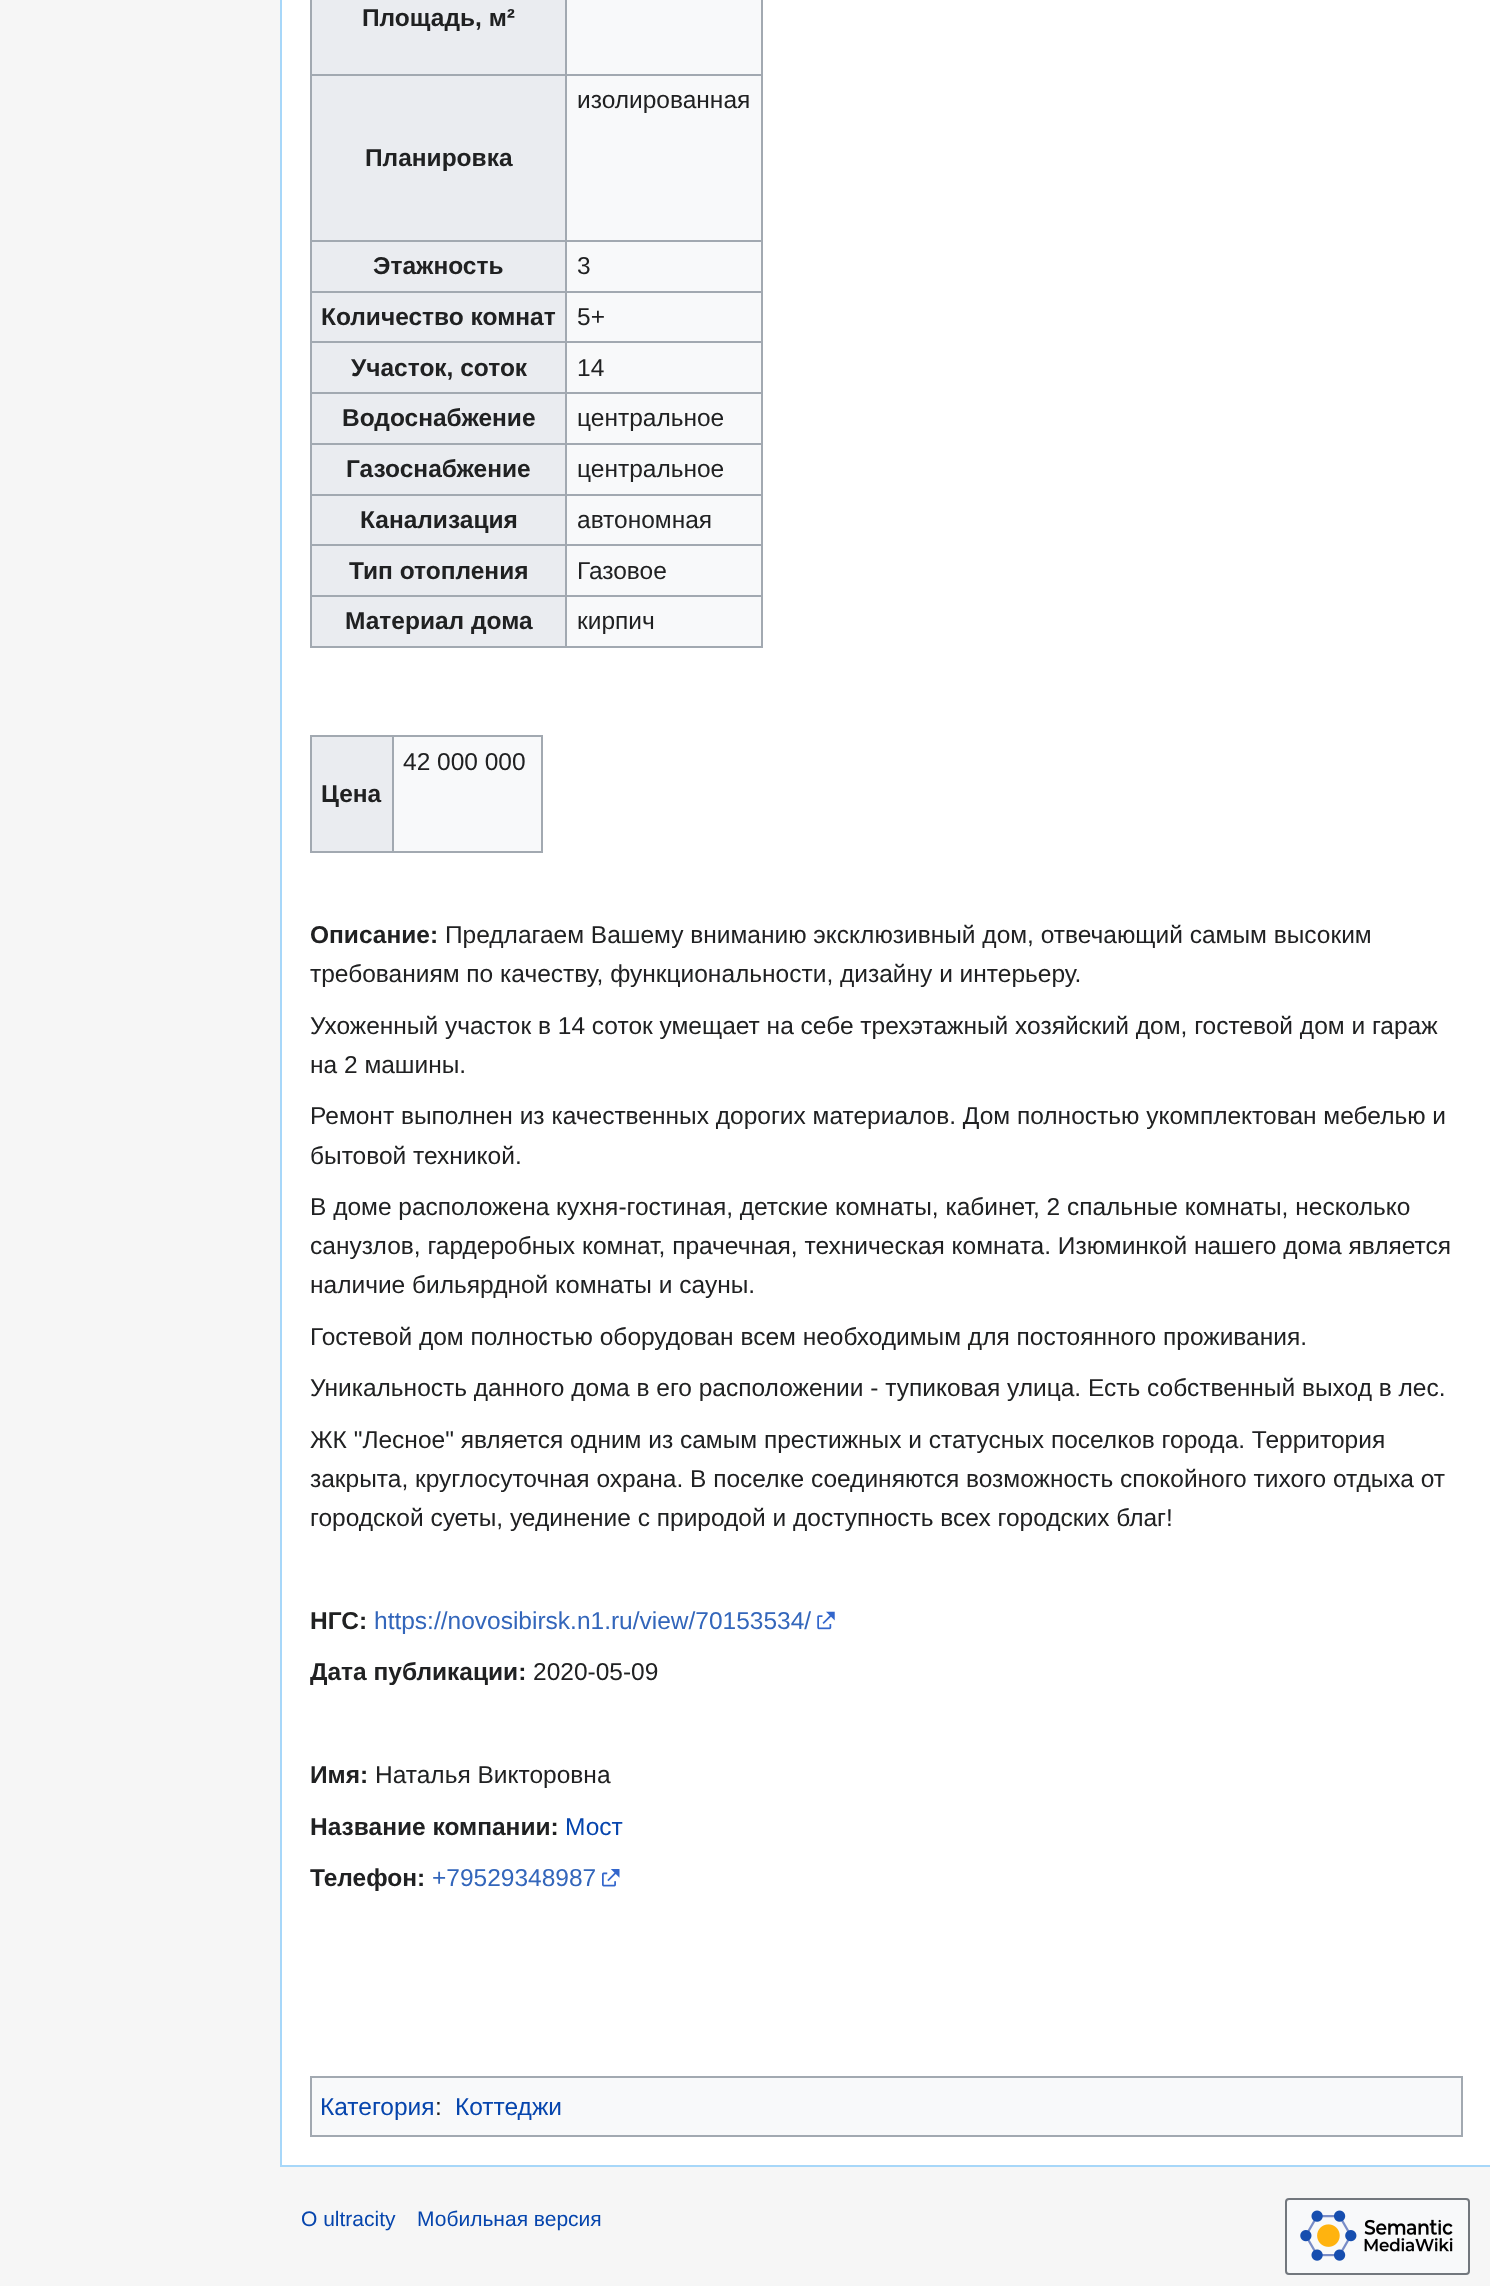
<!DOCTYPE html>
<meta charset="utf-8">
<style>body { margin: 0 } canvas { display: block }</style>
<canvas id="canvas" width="1490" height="2286"></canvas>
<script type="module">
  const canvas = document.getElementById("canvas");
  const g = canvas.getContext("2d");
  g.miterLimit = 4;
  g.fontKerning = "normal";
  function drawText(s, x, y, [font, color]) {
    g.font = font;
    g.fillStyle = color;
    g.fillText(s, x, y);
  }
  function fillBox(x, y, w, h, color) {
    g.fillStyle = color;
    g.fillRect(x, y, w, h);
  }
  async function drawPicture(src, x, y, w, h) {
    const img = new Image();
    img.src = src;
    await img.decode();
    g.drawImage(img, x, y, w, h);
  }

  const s1 = ["bold 24.5px Liberation Sans", "#202122"];
  const s2 = ["24.5px Liberation Sans", "#202122"];
  const s3 = ["24.5px Liberation Sans", "#3366BB"];
  const s4 = ["24.5px Liberation Sans", "#0645AD"];
  const s5 = ["21px Liberation Sans", "#0645AD"];

  fillBox(0, 0, 1490, 2286, "#F6F6F6");
  fillBox(282, 0, 1208, 2165, "#FFFFFF");
  fillBox(280, 2165, 1210, 2, "#A7D7F9");
  fillBox(280, 0, 2, 2167, "#A7D7F9");
  fillBox(567, 0, 194, 646, "#F8F9FA");
  fillBox(761, 0, 2, 648, "#A2A9B1");
  fillBox(310, 646, 453, 2, "#A2A9B1");
  fillBox(310, 0, 2, 648, "#A2A9B1");
  fillBox(312, 0, 253, 74, "#EAECF0");
  drawText("Площадь, м²", 362, 26, s1);
  fillBox(565, 74, 198, 2, "#A2A9B1");
  fillBox(565, 240, 198, 2, "#A2A9B1");
  fillBox(565, 291, 198, 2, "#A2A9B1");
  fillBox(565, 341, 198, 2, "#A2A9B1");
  fillBox(565, 392, 198, 2, "#A2A9B1");
  fillBox(565, 443, 198, 2, "#A2A9B1");
  fillBox(565, 494, 198, 2, "#A2A9B1");
  fillBox(565, 544, 198, 2, "#A2A9B1");
  fillBox(565, 595, 198, 2, "#A2A9B1");
  fillBox(565, 595, 2, 53, "#A2A9B1");
  fillBox(310, 595, 257, 2, "#A2A9B1");
  fillBox(565, 544, 2, 53, "#A2A9B1");
  fillBox(310, 544, 257, 2, "#A2A9B1");
  fillBox(565, 494, 2, 52, "#A2A9B1");
  fillBox(310, 494, 257, 2, "#A2A9B1");
  fillBox(565, 443, 2, 52, "#A2A9B1");
  fillBox(310, 443, 257, 2, "#A2A9B1");
  fillBox(565, 392, 2, 53, "#A2A9B1");
  fillBox(310, 392, 257, 2, "#A2A9B1");
  fillBox(565, 341, 2, 53, "#A2A9B1");
  fillBox(310, 341, 257, 2, "#A2A9B1");
  fillBox(565, 291, 2, 52, "#A2A9B1");
  fillBox(310, 291, 257, 2, "#A2A9B1");
  fillBox(565, 240, 2, 52, "#A2A9B1");
  fillBox(310, 240, 257, 2, "#A2A9B1");
  fillBox(565, 74, 2, 168, "#A2A9B1");
  fillBox(310, 74, 257, 2, "#A2A9B1");
  fillBox(565, 0, 2, 75, "#A2A9B1");
  drawText("изолированная", 577, 108, s2);
  fillBox(312, 76, 253, 164, "#EAECF0");
  drawText("Планировка", 365, 166, s1);
  fillBox(312, 242, 253, 49, "#EAECF0");
  drawText("Этажность", 373, 274, s1);
  drawText("3", 577, 274, s2);
  fillBox(312, 293, 253, 48, "#EAECF0");
  drawText("Количество комнат", 321, 325, s1);
  drawText("5+", 577, 325, s2);
  fillBox(312, 343, 253, 49, "#EAECF0");
  drawText("Участок, соток", 351, 376, s1);
  drawText("14", 577, 376, s2);
  fillBox(312, 394, 253, 49, "#EAECF0");
  drawText("Водоснабжение", 342, 426, s1);
  drawText("центральное", 577, 426, s2);
  fillBox(312, 445, 253, 49, "#EAECF0");
  drawText("Газоснабжение", 346, 477, s1);
  drawText("центральное", 577, 477, s2);
  fillBox(312, 496, 253, 48, "#EAECF0");
  drawText("Канализация", 360, 528, s1);
  drawText("автономная", 577, 528, s2);
  fillBox(312, 546, 253, 49, "#EAECF0");
  drawText("Тип отопления", 349, 579, s1);
  drawText("Газовое", 577, 579, s2);
  fillBox(312, 597, 253, 49, "#EAECF0");
  drawText("Материал дома", 345, 629, s1);
  drawText("кирпич", 577, 629, s2);
  fillBox(394, 737, 147, 114, "#F8F9FA");
  fillBox(310, 735, 233, 2, "#A2A9B1");
  fillBox(541, 735, 2, 117, "#A2A9B1");
  fillBox(310, 851, 233, 2, "#A2A9B1");
  fillBox(310, 735, 2, 117, "#A2A9B1");
  fillBox(392, 735, 2, 117, "#A2A9B1");
  drawText("42 000 000", 403, 770, s2);
  fillBox(312, 737, 80, 114, "#EAECF0");
  drawText("Цена", 321, 802, s1);
  drawText("Описание:", 310, 943, s1);
  drawText("Предлагаем Вашему вниманию эксклюзивный дом, отвечающий самым высоким", 445, 943, s2);
  drawText("требованиям по качеству, функциональности, дизайну и интерьеру.", 310, 982, s2);
  drawText("Ухоженный участок в 14 соток умещает на себе трехэтажный хозяйский дом, гостевой дом и гараж", 310, 1034, s2);
  drawText("на 2 машины.", 310, 1073, s2);
  drawText("Ремонт выполнен из качественных дорогих материалов. Дом полностью укомплектован мебелью и", 310, 1124, s2);
  drawText("бытовой техникой.", 310, 1164, s2);
  drawText("В доме расположена кухня-гостиная, детские комнаты, кабинет, 2 спальные комнаты, несколько", 310, 1215, s2);
  drawText("санузлов, гардеробных комнат, прачечная, техническая комната. Изюминкой нашего дома является", 310, 1254, s2);
  drawText("наличие бильярдной комнаты и сауны.", 310, 1293, s2);
  drawText("Гостевой дом полностью оборудован всем необходимым для постоянного проживания.", 310, 1345, s2);
  drawText("Уникальность данного дома в его расположении - тупиковая улица. Есть собственный выход в лес.", 310, 1396, s2);
  drawText("ЖК \"Лесное\" является одним из самым престижных и статусных поселков города. Территория", 310, 1448, s2);
  drawText("закрыта, круглосуточная охрана. В поселке соединяются возможность спокойного тихого отдыха от", 310, 1487, s2);
  drawText("городской суеты, уединение с природой и доступность всех городских благ!", 310, 1526, s2);
  drawText("НГС:", 310, 1629, s1);
  drawText("https://novosibirsk.n1.ru/view/70153534/", 374, 1629, s3);
  await drawPicture("pic1.png", 817, 1611, 18, 19);
  drawText("Дата публикации:", 310, 1680, s1);
  drawText("2020-05-09", 533, 1680, s2);
  drawText("Имя:", 310, 1783, s1);
  drawText("Наталья Викторовна", 375, 1783, s2);
  drawText("Название компании:", 310, 1835, s1);
  drawText("Мост", 565, 1835, s4);
  drawText("Телефон:", 310, 1886, s1);
  drawText("+79529348987", 432, 1886, s3);
  await drawPicture("pic2.png", 602, 1869, 18, 18);
  g.fillStyle = "#F8F9FA";
  g.beginPath();
  g.rect(311, 2077, 1151, 59);
  g.fill();
  g.strokeStyle = "#A2A9B1";
  g.lineWidth = 2;
  g.stroke();
  drawText("Категория", 320, 2115, s4);
  drawText(":", 435, 2115, s2);
  drawText("Коттеджи", 455, 2115, s4);
  drawText("О ultracity", 301, 2226, s5);
  drawText("Мобильная версия", 417, 2226, s5);
  g.fillStyle = "#F8F9FA";
  g.beginPath();
  g.roundRect(1286, 2199, 183, 75, 3);
  g.fill();
  g.strokeStyle = "#72777D";
  g.stroke();
  await drawPicture("pic3.png", 1300, 2210, 153, 51);
</script>
